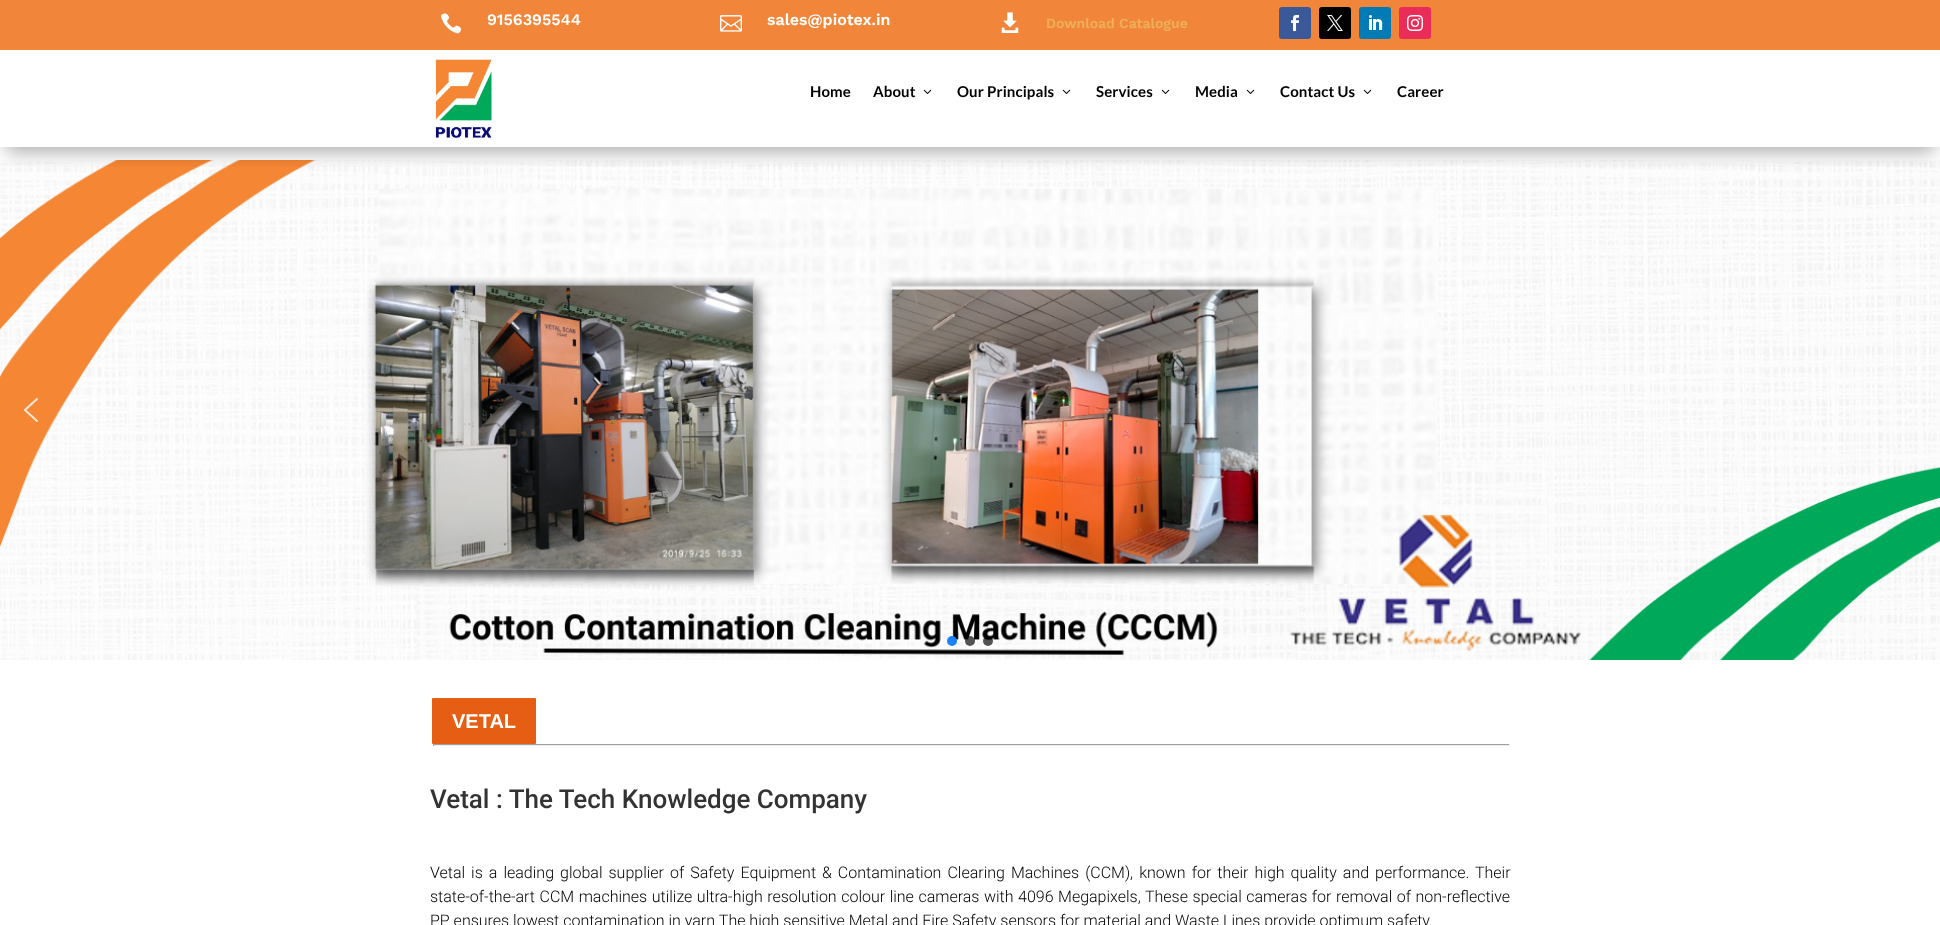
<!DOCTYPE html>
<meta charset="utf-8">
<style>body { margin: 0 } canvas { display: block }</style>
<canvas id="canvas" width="1940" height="925"></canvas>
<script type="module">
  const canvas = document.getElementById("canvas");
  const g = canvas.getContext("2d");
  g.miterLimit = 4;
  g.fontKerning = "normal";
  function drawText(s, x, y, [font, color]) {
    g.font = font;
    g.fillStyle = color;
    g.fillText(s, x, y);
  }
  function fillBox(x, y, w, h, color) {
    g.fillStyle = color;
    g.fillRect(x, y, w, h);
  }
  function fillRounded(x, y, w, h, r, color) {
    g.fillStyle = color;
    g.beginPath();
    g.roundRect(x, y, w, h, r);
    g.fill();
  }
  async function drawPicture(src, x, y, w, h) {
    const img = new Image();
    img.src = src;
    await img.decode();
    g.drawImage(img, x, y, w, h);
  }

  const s1 = ["600 16px Work Sans", "#FFFFFF"];
  const s2 = ["600 14px Work Sans", "#EDB059"];
  const s3 = ["bold 15px Lato", "#000000"];
  const s4 = ["bold 20px Liberation Sans", "#FFFFFF"];
  const s5 = ["500 26px Roboto", "#333333"];
  const s6 = ["300 16px Roboto", "#000000"];

  fillBox(0, 0, 1940, 925, "#FFFFFF");
  fillBox(0, 0, 1940, 50, "#F1863B");
  await drawPicture("pic1.png", 440, 13, 22, 21);
  drawText("9156395544", 487, 25, s1);
  await drawPicture("pic2.png", 720, 15, 22, 17);
  drawText("sales@piotex.in", 767, 25, s1);
  await drawPicture("pic3.png", 1001, 12, 18, 21);
  drawText("Download Catalogue", 1046, 28, s2);
  fillRounded(1279, 7, 32, 32, 3, "#3B5998");
  await drawPicture("pic4.png", 1291, 15, 8, 16);
  fillRounded(1319, 7, 32, 32, 3, "#000000");
  await drawPicture("pic5.png", 1327, 15, 16, 16);
  fillRounded(1359, 7, 32, 32, 3, "#007BB6");
  await drawPicture("pic6.png", 1369, 15, 14, 15);
  fillRounded(1399, 7, 32, 32, 3, "#EA2C59");
  await drawPicture("pic7.png", 1407, 15, 16, 16);
  await drawPicture("pic10.png", 0, 160, 1940, 500);
  g.save();
  g.beginPath();
  g.rect(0, 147, 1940, 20);
  g.clip();
  g.fillStyle = "rgba(0, 0, 0, 0.3)";
  g.filter = "blur(9px)";
  g.beginPath();
  g.rect(6, 68, 1928, 85);
  g.fill();
  g.filter = "none";
  g.restore();
  await drawPicture("pic8.png", 435, 59, 57, 79);
  g.letterSpacing = "0.1px";
  drawText("Home", 810, 97, s3);
  drawText("About", 873, 97, s3);
  await drawPicture("pic9.png", 923, 89, 9, 5);
  drawText("Our Principals", 957, 97, s3);
  await drawPicture("pic9.png", 1062, 89, 9, 5);
  drawText("Services", 1096, 97, s3);
  await drawPicture("pic9.png", 1161, 89, 9, 5);
  drawText("Media", 1195, 97, s3);
  await drawPicture("pic9.png", 1246, 89, 9, 5);
  drawText("Contact Us", 1280, 97, s3);
  await drawPicture("pic9.png", 1363, 89, 9, 5);
  drawText("Career", 1397, 97, s3);
  await drawPicture("pic11.png", 24, 398, 14, 24);
  await drawPicture("pic12.png", 1904, 399, 12, 19);
  g.fillStyle = "#1D81F9";
  g.beginPath();
  g.arc(952, 641, 5, 0, Math.PI * 2);
  g.fill();
  g.fillStyle = "rgba(0, 0, 0, 0.67)";
  g.beginPath();
  g.arc(970, 641, 5, 0, Math.PI * 2);
  g.fill();
  g.beginPath();
  g.arc(988, 641, 5, 0, Math.PI * 2);
  g.fill();
  g.fillStyle = "#E65E14";
  g.beginPath();
  g.roundRect(431, 697, 106, 48, 2);
  g.fill();
  g.strokeStyle = "#FFFFFF";
  g.lineWidth = 2;
  g.stroke();
  g.letterSpacing = "0px";
  drawText("VETAL", 452, 728, s4);
  fillBox(433, 744, 1077, 1, "#9F9F9F");
  fillBox(1509, 744, 1, 2, "#EEEEEE");
  fillBox(433, 745, 1077, 1, "#EEEEEE");
  fillBox(433, 744, 1, 2, "#9F9F9F");
  drawText("Vetal : The Tech Knowledge Company", 430, 808, s5);
  g.wordSpacing = "2.1px";
  drawText("Vetal is a leading global supplier of Safety Equipment & Contamination Clearing Machines (CCM), known for their high quality and performance. Their", 430, 878, s6);
  g.wordSpacing = "0.6px";
  drawText("state-of-the-art CCM machines utilize ultra-high resolution colour line cameras with 4096 Megapixels, These special cameras for removal of non-reflective", 430, 902, s6);
  g.wordSpacing = "0px";
  drawText("PP ensures lowest contamination in yarn.The high sensitive Metal and Fire Safety sensors for material and Waste Lines provide optimum safety.", 430, 926, s6);
</script>
